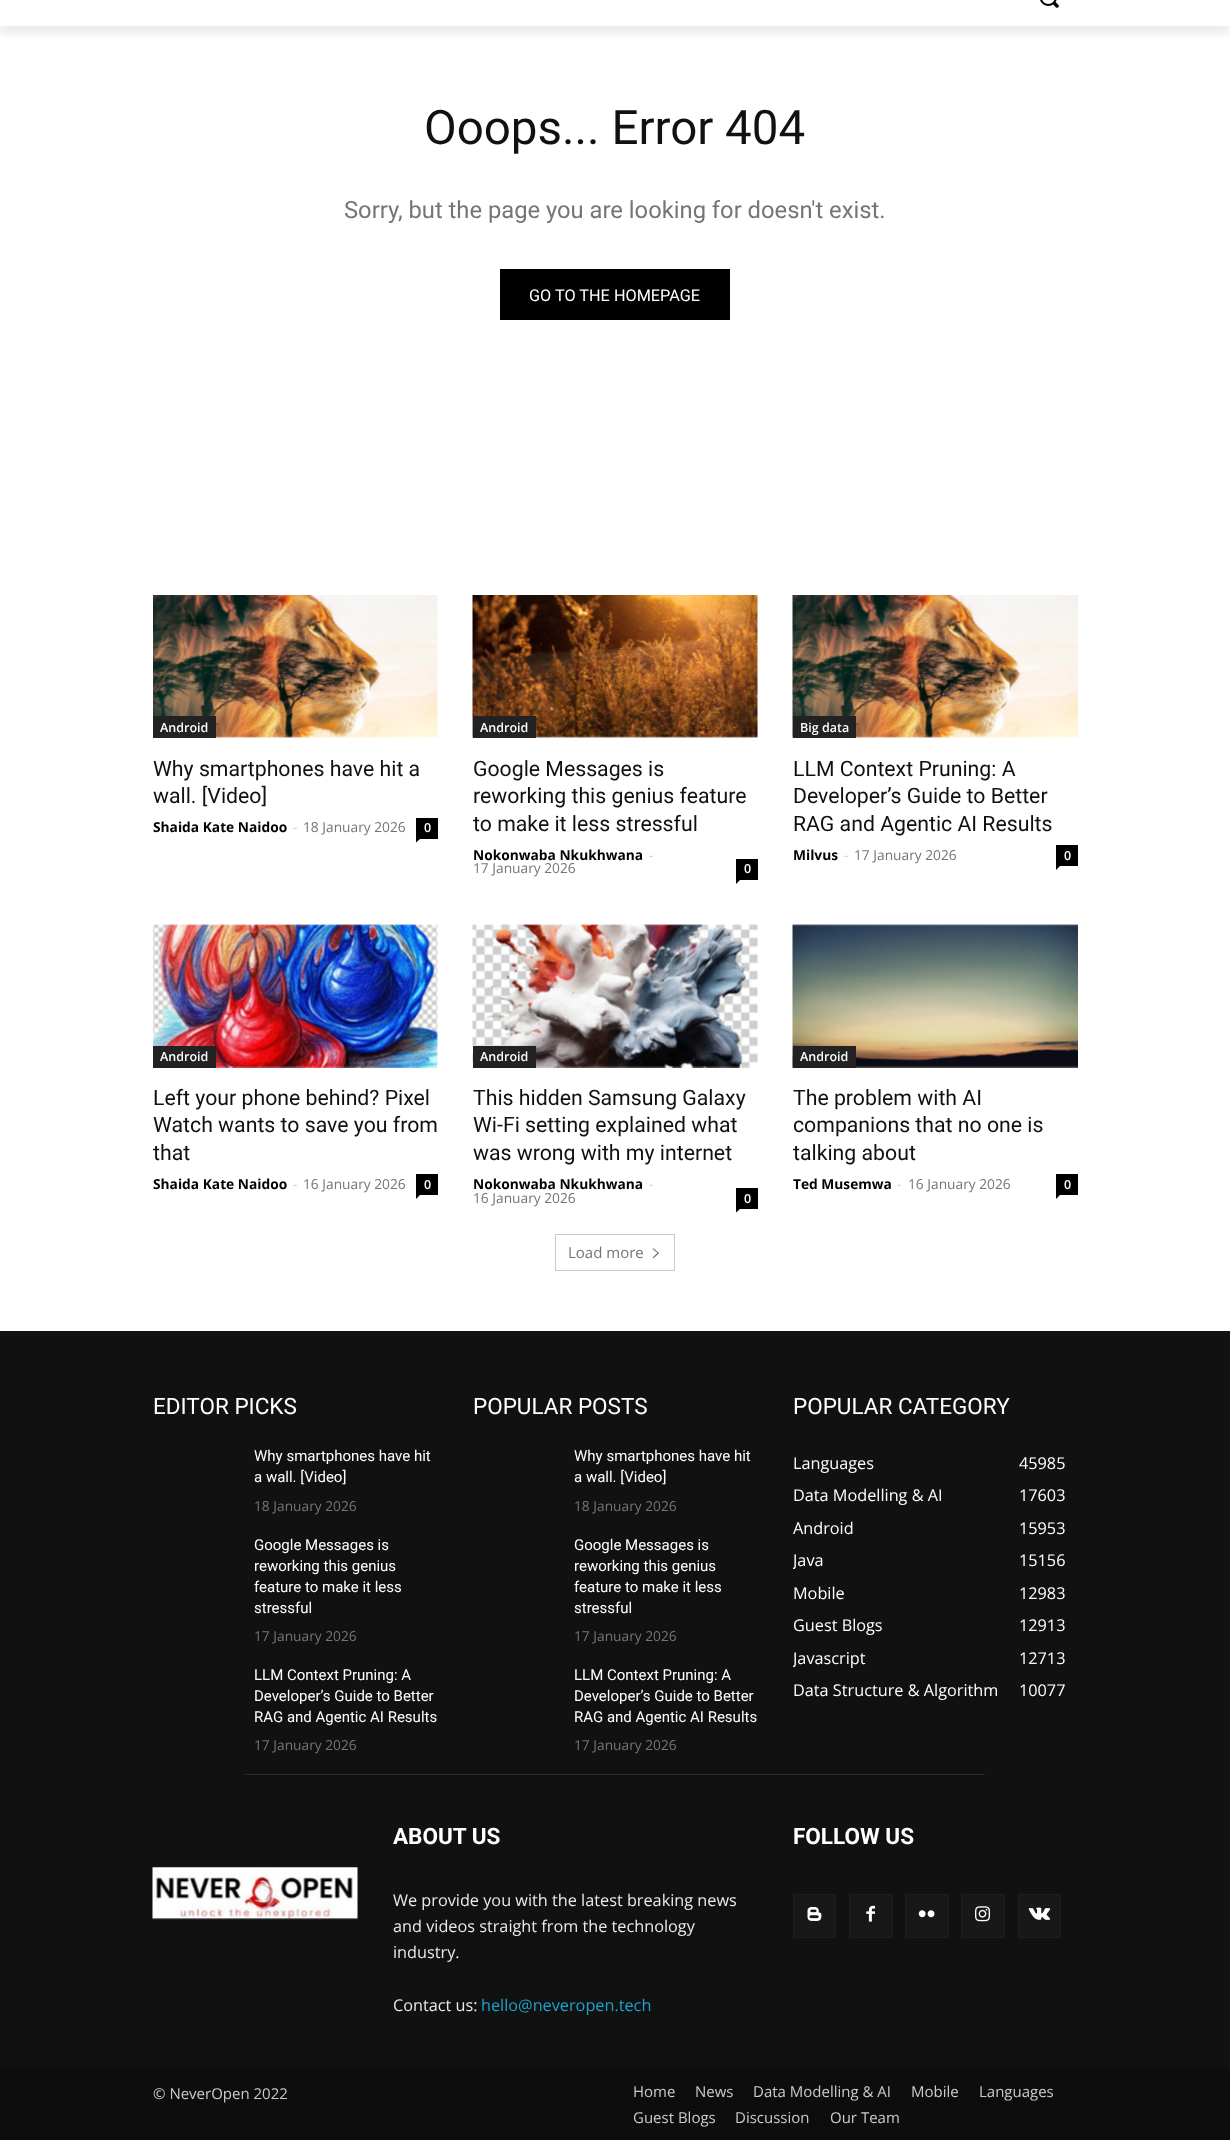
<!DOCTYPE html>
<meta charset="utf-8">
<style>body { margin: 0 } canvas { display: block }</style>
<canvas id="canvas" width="1230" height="2140"></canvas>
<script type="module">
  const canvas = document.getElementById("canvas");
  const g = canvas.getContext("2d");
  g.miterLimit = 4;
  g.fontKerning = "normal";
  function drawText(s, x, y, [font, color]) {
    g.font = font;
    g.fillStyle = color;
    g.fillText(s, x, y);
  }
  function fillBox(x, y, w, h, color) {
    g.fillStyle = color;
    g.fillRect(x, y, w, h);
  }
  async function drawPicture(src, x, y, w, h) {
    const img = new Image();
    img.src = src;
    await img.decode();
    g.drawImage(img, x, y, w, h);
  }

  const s1 = ["47.5px Roboto", "#111111"];
  const s2 = ["23.75px Roboto", "#757575"];
  const s3 = ["16.25px Roboto", "#FFFFFF"];
  const s4 = ["600 12.5px Open Sans", "#FFFFFF"];
  const s5 = ["21.25px Roboto", "#111111"];
  const s6 = ["bold 13.75px Open Sans", "#000000"];
  const s7 = ["13.75px Open Sans", "#CCCCCC"];
  const s8 = ["13.75px Open Sans", "#757575"];
  const s9 = ["15px Open Sans", "#757575"];
  const s10 = ["22.5px Roboto", "#FFFFFF"];
  const s11 = ["15px Roboto", "#FFFFFF"];
  const s12 = ["16.25px Open Sans", "#FFFFFF"];
  const s13 = ["bold 22.5px Roboto", "#FFFFFF"];
  const s14 = ["16.25px Open Sans", "#EAEAEA"];
  const s15 = ["16.25px Open Sans", "#1AA4CE"];
  const s16 = ["15px Open Sans", "#CCCCCC"];

  fillBox(0, 0, 1230, 2140, "#FFFFFF");
  g.save();
  g.beginPath();
  g.rect(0, 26, 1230, 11);
  g.clip();
  g.fillStyle = "rgba(0, 0, 0, 0.08)";
  g.filter = "blur(5px)";
  g.beginPath();
  g.rect(0, -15, 1230, 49);
  g.fill();
  g.filter = "none";
  g.restore();
  await drawPicture("pic1.png", 1040, 0, 19, 8);
  drawText("Ooops... Error 404", 424, 144, s1);
  drawText("Sorry, but the page you are looking for doesn't exist.", 344, 218, s2);
  fillBox(500, 269, 230, 51, "#000000");
  drawText("GO TO THE HOMEPAGE", 529, 301, s3);
  await drawPicture("pic2.png", 153, 595, 285, 143);
  fillBox(153, 716, 63, 22, "#222222");
  drawText("Android", 160, 732, s4);
  drawText("Why smartphones have hit a", 153, 776, s5);
  drawText("wall. [Video]", 153, 803, s5);
  drawText("Shaida Kate Naidoo", 153, 832, s6);
  drawText("-", 293, 832, s7);
  drawText("18 January 2026", 303, 832, s8);
  fillBox(416, 818, 22, 21, "#000000");
  drawText("0", 424, 832, s4);
  g.fillStyle = "#000000";
  g.beginPath();
  g.moveTo(416, 839);
  g.lineTo(420, 839);
  g.lineTo(416, 842.5);
  g.closePath();
  g.fill();
  await drawPicture("pic3.png", 472, 595, 286, 143);
  fillBox(473, 716, 63, 22, "#222222");
  drawText("Android", 480, 732, s4);
  drawText("Google Messages is", 473, 776, s5);
  drawText("reworking this genius feature", 473, 803, s5);
  drawText("to make it less stressful", 473, 831, s5);
  drawText("Nokonwaba Nkukhwana", 473, 860, s6);
  drawText("-", 649, 860, s7);
  drawText("17 January 2026", 473, 873, s8);
  fillBox(736, 859, 22, 21, "#000000");
  drawText("0", 744, 873, s4);
  g.fillStyle = "#000000";
  g.beginPath();
  g.moveTo(736, 880);
  g.lineTo(740, 880);
  g.lineTo(736, 884);
  g.closePath();
  g.fill();
  await drawPicture("pic4.png", 792, 595, 286, 143);
  fillBox(793, 716, 63, 22, "#222222");
  drawText("Big data", 800, 732, s4);
  drawText("LLM Context Pruning: A", 793, 776, s5);
  drawText("Developer’s Guide to Better", 793, 803, s5);
  drawText("RAG and Agentic AI Results", 793, 831, s5);
  drawText("Milvus", 793, 860, s6);
  drawText("-", 844, 860, s7);
  drawText("17 January 2026", 854, 860, s8);
  fillBox(1056, 845, 22, 21, "#000000");
  drawText("0", 1064, 860, s4);
  g.fillStyle = "#000000";
  g.beginPath();
  g.moveTo(1056, 866);
  g.lineTo(1060, 866);
  g.lineTo(1056, 870);
  g.closePath();
  g.fill();
  await drawPicture("pic5.png", 153, 924, 285, 144);
  fillBox(153, 1046, 63, 22, "#222222");
  drawText("Android", 160, 1061, s4);
  drawText("Left your phone behind? Pixel", 153, 1105, s5);
  drawText("Watch wants to save you from", 153, 1132, s5);
  drawText("that", 153, 1160, s5);
  drawText("Shaida Kate Naidoo", 153, 1189, s6);
  drawText("-", 293, 1189, s7);
  drawText("16 January 2026", 303, 1189, s8);
  fillBox(416, 1174, 22, 21, "#000000");
  drawText("0", 424, 1189, s4);
  g.fillStyle = "#000000";
  g.beginPath();
  g.moveTo(416, 1195);
  g.lineTo(420, 1195);
  g.lineTo(416, 1199);
  g.closePath();
  g.fill();
  await drawPicture("pic6.png", 472, 924, 286, 144);
  fillBox(473, 1046, 63, 22, "#222222");
  drawText("Android", 480, 1061, s4);
  drawText("This hidden Samsung Galaxy", 473, 1105, s5);
  drawText("Wi-Fi setting explained what", 473, 1132, s5);
  drawText("was wrong with my internet", 473, 1160, s5);
  drawText("Nokonwaba Nkukhwana", 473, 1189, s6);
  drawText("-", 649, 1189, s7);
  drawText("16 January 2026", 473, 1203, s8);
  fillBox(736, 1188, 22, 21, "#000000");
  drawText("0", 744, 1203, s4);
  g.fillStyle = "#000000";
  g.beginPath();
  g.moveTo(736, 1209);
  g.lineTo(740, 1209);
  g.lineTo(736, 1212.5);
  g.closePath();
  g.fill();
  await drawPicture("pic7.png", 792, 924, 286, 144);
  fillBox(793, 1046, 63, 22, "#222222");
  drawText("Android", 800, 1061, s4);
  drawText("The problem with AI", 793, 1105, s5);
  drawText("companions that no one is", 793, 1132, s5);
  drawText("talking about", 793, 1160, s5);
  drawText("Ted Musemwa", 793, 1189, s6);
  drawText("-", 897, 1189, s7);
  drawText("16 January 2026", 908, 1189, s8);
  fillBox(1056, 1174, 22, 21, "#000000");
  drawText("0", 1064, 1189, s4);
  g.fillStyle = "#000000";
  g.beginPath();
  g.moveTo(1056, 1195);
  g.lineTo(1060, 1195);
  g.lineTo(1056, 1199);
  g.closePath();
  g.fill();
  g.strokeStyle = "#C9C9C9";
  g.strokeRect(555.5, 1234.5, 119, 36);
  drawText("Load more", 568, 1258, s9);
  await drawPicture("pic8.png", 652, 1248, 7, 11);
  fillBox(0, 1331, 1230, 737, "#111111");
  drawText("EDITOR PICKS", 153, 1414, s10);
  drawText("Why smartphones have hit", 254, 1461, s11);
  drawText("a wall. [Video]", 254, 1482, s11);
  drawText("18 January 2026", 254, 1511, s8);
  drawText("Google Messages is", 254, 1550, s11);
  drawText("reworking this genius", 254, 1571, s11);
  drawText("feature to make it less", 254, 1592, s11);
  drawText("stressful", 254, 1613, s11);
  drawText("17 January 2026", 254, 1641, s8);
  drawText("LLM Context Pruning: A", 254, 1680, s11);
  drawText("Developer’s Guide to Better", 254, 1701, s11);
  drawText("RAG and Agentic AI Results", 254, 1722, s11);
  drawText("17 January 2026", 254, 1750, s8);
  drawText("POPULAR POSTS", 473, 1414, s10);
  drawText("Why smartphones have hit", 574, 1461, s11);
  drawText("a wall. [Video]", 574, 1482, s11);
  drawText("18 January 2026", 574, 1511, s8);
  drawText("Google Messages is", 574, 1550, s11);
  drawText("reworking this genius", 574, 1571, s11);
  drawText("feature to make it less", 574, 1592, s11);
  drawText("stressful", 574, 1613, s11);
  drawText("17 January 2026", 574, 1641, s8);
  drawText("LLM Context Pruning: A", 574, 1680, s11);
  drawText("Developer’s Guide to Better", 574, 1701, s11);
  drawText("RAG and Agentic AI Results", 574, 1722, s11);
  drawText("17 January 2026", 574, 1750, s8);
  drawText("POPULAR CATEGORY", 793, 1414, s10);
  drawText("Languages", 793, 1469, s12);
  drawText("45985", 1019, 1469, s12);
  drawText("Data Modelling & AI", 793, 1501, s12);
  drawText("17603", 1019, 1501, s12);
  drawText("Android", 793, 1534, s12);
  drawText("15953", 1019, 1534, s12);
  g.save();
  g.beginPath();
  g.rect(793, 1386, 285, 338);
  g.clip();
  drawText("Java", 793, 1566, s12);
  g.restore();
  drawText("15156", 1019, 1566, s12);
  drawText("Mobile", 793, 1599, s12);
  drawText("12983", 1019, 1599, s12);
  drawText("Guest Blogs", 793, 1631, s12);
  drawText("12913", 1019, 1631, s12);
  g.save();
  g.beginPath();
  g.rect(793, 1386, 285, 338);
  g.clip();
  drawText("Javascript", 793, 1664, s12);
  g.restore();
  drawText("12713", 1019, 1664, s12);
  drawText("Data Structure & Algorithm", 793, 1696, s12);
  drawText("10077", 1019, 1696, s12);
  fillBox(245, 1774, 740, 1, "#292929");
  drawText("ABOUT US", 393, 1844, s13);
  drawText("We provide you with the latest breaking news", 393, 1906, s14);
  drawText("and videos straight from the technology", 393, 1932, s14);
  drawText("industry.", 393, 1958, s14);
  drawText("Contact us:", 393, 2011, s14);
  drawText("hello@neveropen.tech", 481, 2011, s15);
  drawText("FOLLOW US", 793, 1844, s13);
  g.fillStyle = "#181818";
  g.beginPath();
  g.rect(793.5, 1894.5, 42, 43);
  g.fill();
  g.strokeStyle = "#1F1F1F";
  g.stroke();
  await drawPicture("pic9.png", 807, 1907, 15, 14);
  g.beginPath();
  g.rect(849.5, 1894.5, 43, 43);
  g.fill();
  g.stroke();
  await drawPicture("pic10.png", 866, 1905, 9, 17);
  g.beginPath();
  g.rect(905.5, 1894.5, 43, 43);
  g.fill();
  g.stroke();
  await drawPicture("pic11.png", 918, 1910, 17, 8);
  g.beginPath();
  g.rect(961.5, 1894.5, 43, 43);
  g.fill();
  g.stroke();
  await drawPicture("pic12.png", 975, 1906, 15, 16);
  g.beginPath();
  g.rect(1018.5, 1894.5, 42, 43);
  g.fill();
  g.stroke();
  await drawPicture("pic13.png", 1028, 1907, 23, 13);
  await drawPicture("pic14.png", 152, 1867, 206, 53);
  fillBox(0, 2068, 1230, 72, "#0D0D0D");
  drawText("© NeverOpen 2022", 153, 2099, s16);
  drawText("Home", 633, 2097, s16);
  drawText("News", 695, 2097, s16);
  drawText("Data Modelling & AI", 753, 2097, s16);
  drawText("Mobile", 911, 2097, s16);
  drawText("Languages", 979, 2097, s16);
  drawText("Guest Blogs", 633, 2123, s16);
  drawText("Discussion", 735, 2123, s16);
  drawText("Our Team", 830, 2123, s16);
</script>
